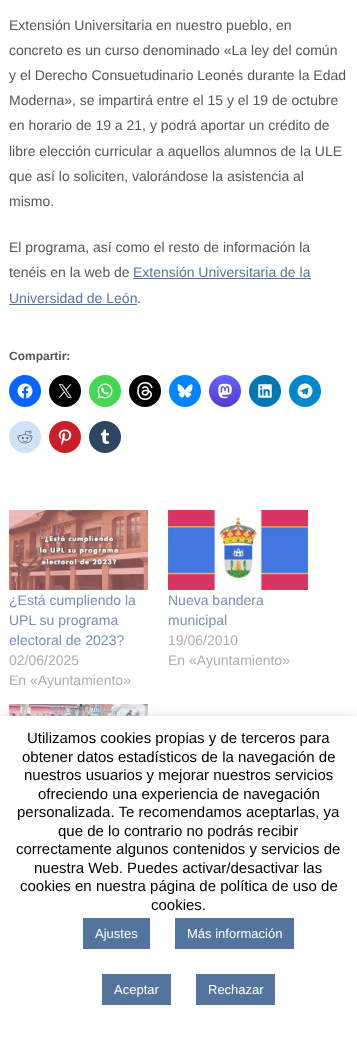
<!DOCTYPE html>
<meta charset="utf-8">
<style>body { margin: 0 } canvas { display: block }</style>
<canvas id="canvas" width="357" height="1037"></canvas>
<script type="module">
  const canvas = document.getElementById("canvas");
  const g = canvas.getContext("2d");
  g.miterLimit = 4;
  g.fontKerning = "normal";
  function drawText(s, x, y, [font, color]) {
    g.font = font;
    g.fillStyle = color;
    g.fillText(s, x, y);
  }
  function fillBox(x, y, w, h, color) {
    g.fillStyle = color;
    g.fillRect(x, y, w, h);
  }
  async function drawPicture(src, x, y, w, h) {
    const img = new Image();
    img.src = src;
    await img.decode();
    g.drawImage(img, x, y, w, h);
  }
  let gradient;

  const s1 = ["14px Liberation Sans", "#565656"];
  const s2 = ["14px Liberation Sans", "#5574A1"];
  const s3 = ["bold 12px Liberation Sans", "#565656"];
  const s4 = ["14px Liberation Sans", "#7790B4"];
  const s5 = ["14px Liberation Sans", "#AEAEAE"];
  const s6 = ["15px Liberation Sans", "#000000"];
  const s7 = ["13px Liberation Sans", "#FFFFFF"];

  fillBox(0, 0, 357, 1037, "#FFFFFF");
  drawText("Extensión Universitaria en nuestro pueblo, en", 9, 30, s1);
  drawText("concreto es un curso denominado «La ley del común", 9, 55, s1);
  drawText("y el Derecho Consuetudinario Leonés durante la Edad", 9, 80, s1);
  drawText("Moderna», se impartirá entre el 15 y el 19 de octubre", 9, 105, s1);
  drawText("en horario de 19 a 21, y podrá aportar un crédito de", 9, 130, s1);
  drawText("libre elección curricular a aquellos alumnos de la ULE", 9, 156, s1);
  drawText("que así lo soliciten, valorándose la asistencia al", 9, 181, s1);
  drawText("mismo.", 9, 206, s1);
  drawText("El programa, así como el resto de información la", 9, 252, s1);
  drawText("tenéis en la web de", 9, 277, s1);
  drawText("Extensión Universitaria de la", 133, 277, s2);
  fillBox(133, 278, 178, 1, "#5574A1");
  drawText("Universidad de León", 9, 303, s2);
  fillBox(9, 304, 128, 1, "#5574A1");
  drawText(".", 137, 303, s1);
  drawText("Compartir:", 9, 360, s3);
  g.fillStyle = "#0866FF";
  g.beginPath();
  g.arc(25, 391, 16, 0, Math.PI * 2);
  g.fill();
  await drawPicture("pic1.png", 17, 383, 16, 16);
  g.fillStyle = "#000000";
  g.beginPath();
  g.arc(65, 391, 16, 0, Math.PI * 2);
  g.fill();
  await drawPicture("pic2.png", 58, 384, 14, 14);
  g.fillStyle = "#43D854";
  g.beginPath();
  g.arc(105, 391, 16, 0, Math.PI * 2);
  g.fill();
  await drawPicture("pic3.png", 97, 383, 16, 16);
  g.fillStyle = "#000000";
  g.beginPath();
  g.arc(145, 391, 16, 0, Math.PI * 2);
  g.fill();
  await drawPicture("pic4.png", 137, 382, 16, 18);
  g.fillStyle = "#0085FF";
  g.beginPath();
  g.arc(185, 391, 16, 0, Math.PI * 2);
  g.fill();
  await drawPicture("pic5.png", 177, 384, 16, 14);
  gradient = g.createLinearGradient(225, 407, 225, 375);
  gradient.addColorStop(0, "#563ACC");
  gradient.addColorStop(1, "#6364FF");
  g.fillStyle = gradient;
  g.beginPath();
  g.arc(225, 391, 16, 0, Math.PI * 2);
  g.fill();
  await drawPicture("pic6.png", 218, 383, 14, 16);
  g.fillStyle = "#0077B5";
  g.beginPath();
  g.arc(265, 391, 16, 0, Math.PI * 2);
  g.fill();
  await drawPicture("pic7.png", 258, 384, 14, 14);
  g.fillStyle = "#0088CC";
  g.beginPath();
  g.arc(305, 391, 16, 0, Math.PI * 2);
  g.fill();
  await drawPicture("pic8.png", 297, 383, 16, 16);
  g.fillStyle = "#CEE3F8";
  g.beginPath();
  g.arc(25, 437, 16, 0, Math.PI * 2);
  g.fill();
  await drawPicture("pic9.png", 17, 430, 16, 14);
  g.fillStyle = "#CA1F27";
  g.beginPath();
  g.arc(65, 437, 16, 0, Math.PI * 2);
  g.fill();
  await drawPicture("pic10.png", 58, 429, 14, 16);
  g.fillStyle = "#2C4762";
  g.beginPath();
  g.arc(105, 437, 16, 0, Math.PI * 2);
  g.fill();
  await drawPicture("pic11.png", 100, 429, 10, 15);
  await drawPicture("pic12.png", 9, 510, 139, 80);
  drawText("¿Está cumpliendo la", 9, 605, s4);
  drawText("UPL su programa", 9, 625, s4);
  drawText("electoral de 2023?", 9, 645, s4);
  drawText("02/06/2025", 9, 665, s5);
  drawText("En «Ayuntamiento»", 9, 685, s5);
  await drawPicture("pic13.png", 168, 510, 140, 80);
  drawText("Nueva bandera", 168, 605, s4);
  drawText("municipal", 168, 625, s4);
  drawText("19/06/2010", 168, 645, s5);
  drawText("En «Ayuntamiento»", 168, 665, s5);
  await drawPicture("pic14.png", 9, 704, 139, 12);
  g.fillStyle = "rgba(172, 171, 171, 0.3)";
  g.filter = "blur(5px)";
  g.beginPath();
  g.rect(0, 715, 357, 321);
  g.fill();
  g.filter = "none";
  fillBox(0, 716, 357, 321, "#FFFFFF");
  drawText("Utilizamos cookies propias y de terceros para", 27, 743, s6);
  drawText("obtener datos estadísticos de la navegación de", 22, 762, s6);
  drawText("nuestros usuarios y mejorar nuestros servicios", 24, 780, s6);
  drawText("ofreciendo una experiencia de navegación", 38, 799, s6);
  drawText("personalizada. Te recomendamos aceptarlas, ya", 17, 817, s6);
  drawText("que de lo contrario no podrás recibir", 58, 836, s6);
  drawText("correctamente algunos contenidos y servicios de", 16, 854, s6);
  drawText("nuestra Web. Puedes activar/desactivar las", 34, 873, s6);
  drawText("cookies en nuestra página de política de uso de", 20, 891, s6);
  drawText("cookies.", 151, 910, s6);
  fillBox(83, 918, 67, 31, "#53759D");
  drawText("Ajustes", 95, 938, s7);
  fillBox(175, 918, 119, 31, "#53759D");
  drawText("Más información", 187, 938, s7);
  fillBox(102, 974, 69, 31, "#53759D");
  drawText("Aceptar", 114, 994, s7);
  fillBox(196, 974, 79, 31, "#53759D");
  drawText("Rechazar", 208, 994, s7);
</script>
